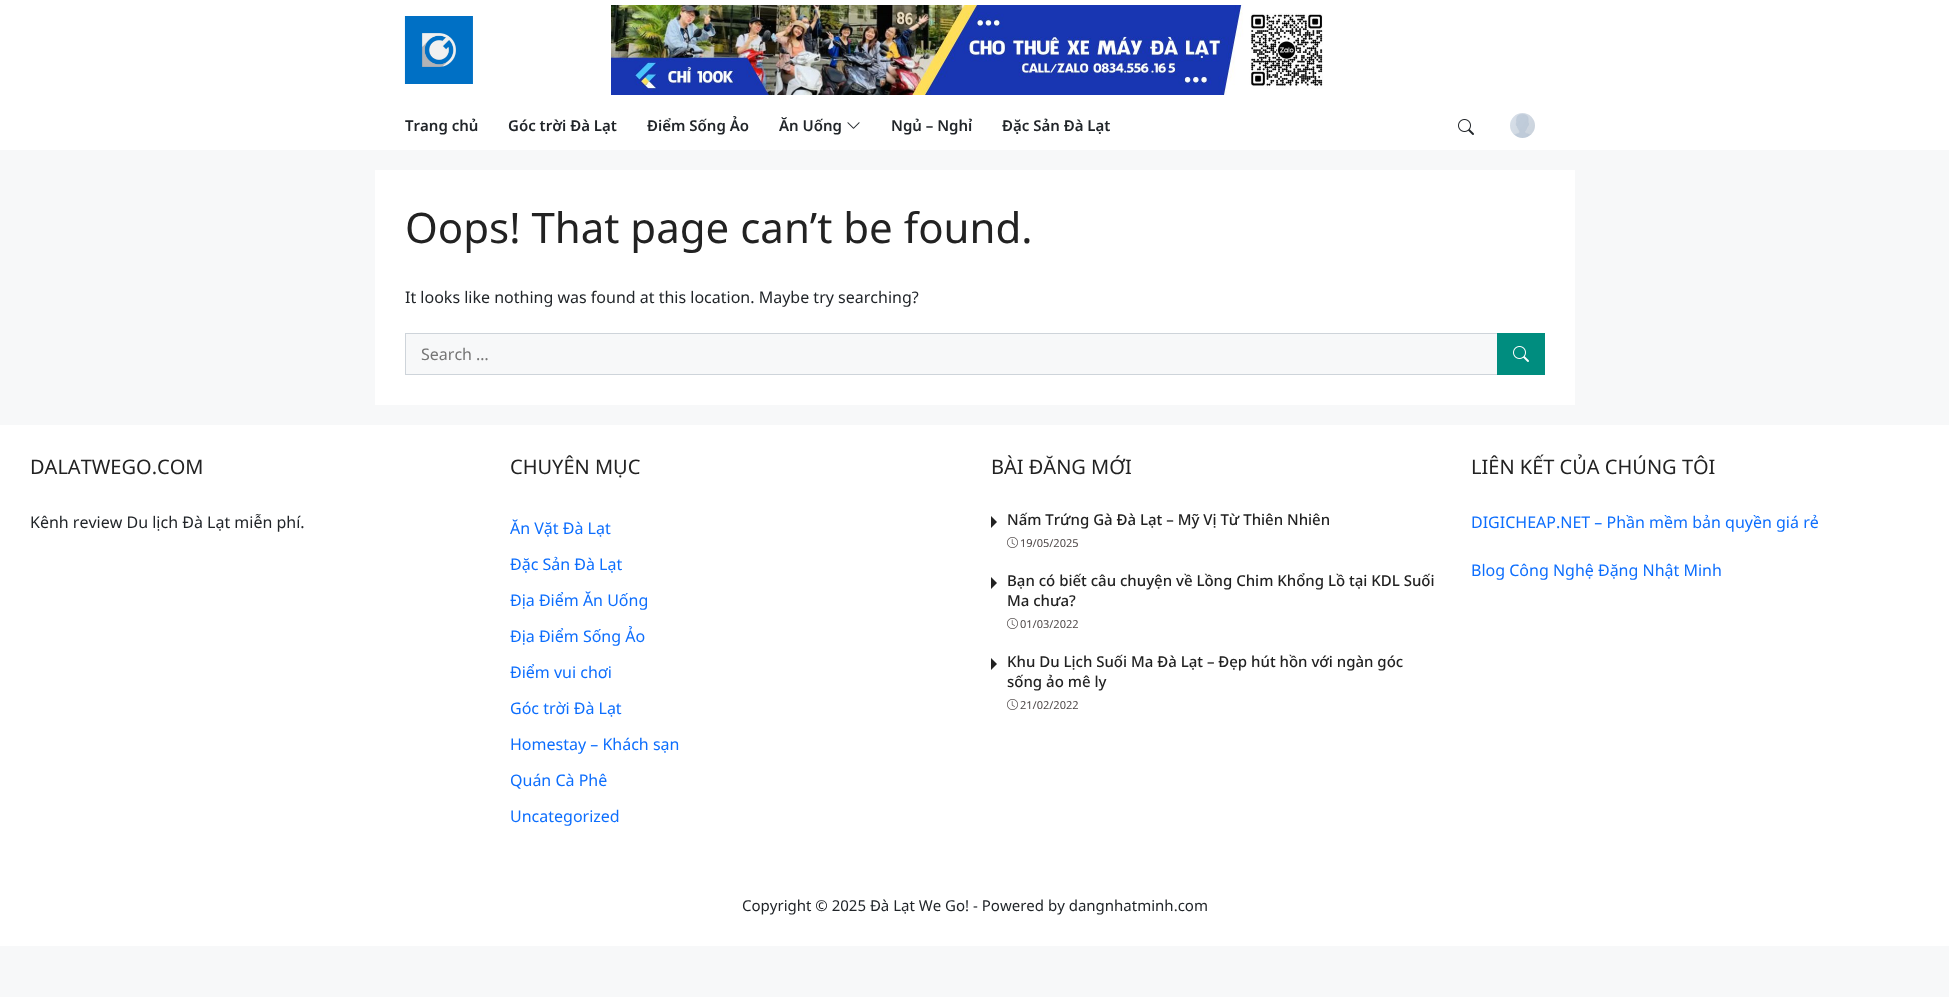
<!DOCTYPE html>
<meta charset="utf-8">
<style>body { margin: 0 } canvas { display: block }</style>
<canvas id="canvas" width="1949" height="997"></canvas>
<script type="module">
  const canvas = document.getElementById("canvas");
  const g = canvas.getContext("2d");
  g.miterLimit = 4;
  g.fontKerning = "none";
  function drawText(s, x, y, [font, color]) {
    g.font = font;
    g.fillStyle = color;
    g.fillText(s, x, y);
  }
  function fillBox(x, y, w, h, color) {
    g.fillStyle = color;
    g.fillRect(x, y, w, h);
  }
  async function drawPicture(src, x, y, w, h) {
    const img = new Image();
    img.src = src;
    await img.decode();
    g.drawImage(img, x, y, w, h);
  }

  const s1 = ["600 15px Noto Sans", "#212529"];
  const s2 = ["42px Noto Sans", "#222222"];
  const s3 = ["16px Noto Sans", "#212529"];
  const s4 = ["16px Noto Sans", "#757575"];
  const s5 = ["20px Noto Sans", "#222222"];
  const s6 = ["16px Noto Sans", "#0D6EFD"];
  const s7 = ["500 15px Noto Sans", "#222222"];
  const s8 = ["11px Noto Sans", "#4B4545"];
  const s9 = ["15px Noto Sans", "#212529"];

  fillBox(0, 0, 1949, 997, "#F7F8F9");
  fillBox(0, 0, 1949, 150, "#FFFFFF");
  await drawPicture("pic1.png", 404, 16, 69, 68);
  await drawPicture("pic2.png", 611, 5, 712, 90);
  drawText("Trang chủ", 405, 131, s1);
  drawText("Góc trời Đà Lạt", 508, 131, s1);
  drawText("Điểm Sống Ảo", 647, 131, s1);
  drawText("Ăn Uống", 779, 131, s1);
  await drawPicture("pic3.png", 847, 122, 13, 7);
  drawText("Ngủ – Nghỉ", 891, 131, s1);
  drawText("Đặc Sản Đà Lạt", 1002, 131, s1);
  await drawPicture("pic4.png", 1458, 119, 16, 16);
  await drawPicture("pic5.png", 1510, 113, 25, 25);
  fillBox(375, 170, 1200, 235, "#FFFFFF");
  drawText("Oops! That page can’t be found.", 405, 243, s2);
  drawText("It looks like nothing was found at this location. Maybe try searching?", 405, 303, s3);
  fillBox(406, 334, 1091, 40, "#F7F8F9");
  g.strokeStyle = "#CED4DA";
  g.strokeRect(405.5, 333.5, 1139, 41);
  drawText("Search …", 421, 360, s4);
  fillBox(1497, 333, 48, 42, "#008D7F");
  await drawPicture("pic6.png", 1513, 346, 16, 16);
  fillBox(0, 425, 1949, 521, "#FFFFFF");
  drawText("DALATWEGO.COM", 30, 474, s5);
  drawText("Kênh review Du lịch Đà Lạt miễn phí.", 30, 528, s3);
  drawText("CHUYÊN MỤC", 510, 474, s5);
  drawText("Ăn Vặt Đà Lạt", 510, 534, s6);
  drawText("Đặc Sản Đà Lạt", 510, 570, s6);
  drawText("Địa Điểm Ăn Uống", 510, 606, s6);
  drawText("Địa Điểm Sống Ảo", 510, 642, s6);
  drawText("Điểm vui chơi", 510, 678, s6);
  drawText("Góc trời Đà Lạt", 510, 714, s6);
  drawText("Homestay – Khách sạn", 510, 750, s6);
  drawText("Quán Cà Phê", 510, 786, s6);
  drawText("Uncategorized", 510, 822, s6);
  drawText("BÀI ĐĂNG MỚI", 991, 474, s5);
  g.beginPath();
  g.moveTo(991, 528);
  g.lineTo(991, 516);
  g.lineTo(997, 522);
  g.closePath();
  g.fill();
  drawText("Nấm Trứng Gà Đà Lạt – Mỹ Vị Từ Thiên Nhiên", 1007, 525, s7);
  await drawPicture("pic7.png", 1007, 537, 11, 11);
  drawText("19/05/2025", 1020, 547, s8);
  g.fillStyle = "#222222";
  g.beginPath();
  g.moveTo(991, 589);
  g.lineTo(991, 577);
  g.lineTo(997, 583);
  g.closePath();
  g.fill();
  drawText("Bạn có biết câu chuyện về Lồng Chim Khổng Lồ tại KDL Suối", 1007, 586, s7);
  drawText("Ma chưa?", 1007, 606, s7);
  await drawPicture("pic7.png", 1007, 618, 11, 11);
  drawText("01/03/2022", 1020, 628, s8);
  g.fillStyle = "#222222";
  g.beginPath();
  g.moveTo(991, 670);
  g.lineTo(991, 658);
  g.lineTo(997, 664);
  g.closePath();
  g.fill();
  drawText("Khu Du Lịch Suối Ma Đà Lạt – Đẹp hút hồn với ngàn góc", 1007, 667, s7);
  drawText("sống ảo mê ly", 1007, 687, s7);
  await drawPicture("pic7.png", 1007, 699, 11, 11);
  drawText("21/02/2022", 1020, 709, s8);
  drawText("LIÊN KẾT CỦA CHÚNG TÔI", 1471, 474, s5);
  drawText("DIGICHEAP.NET – Phần mềm bản quyền giá rẻ", 1471, 528, s6);
  drawText("Blog Công Nghệ Đặng Nhật Minh", 1471, 576, s6);
  drawText("Copyright © 2025 Đà Lạt We Go! - Powered by dangnhatminh.com", 742, 911, s9);
</script>
